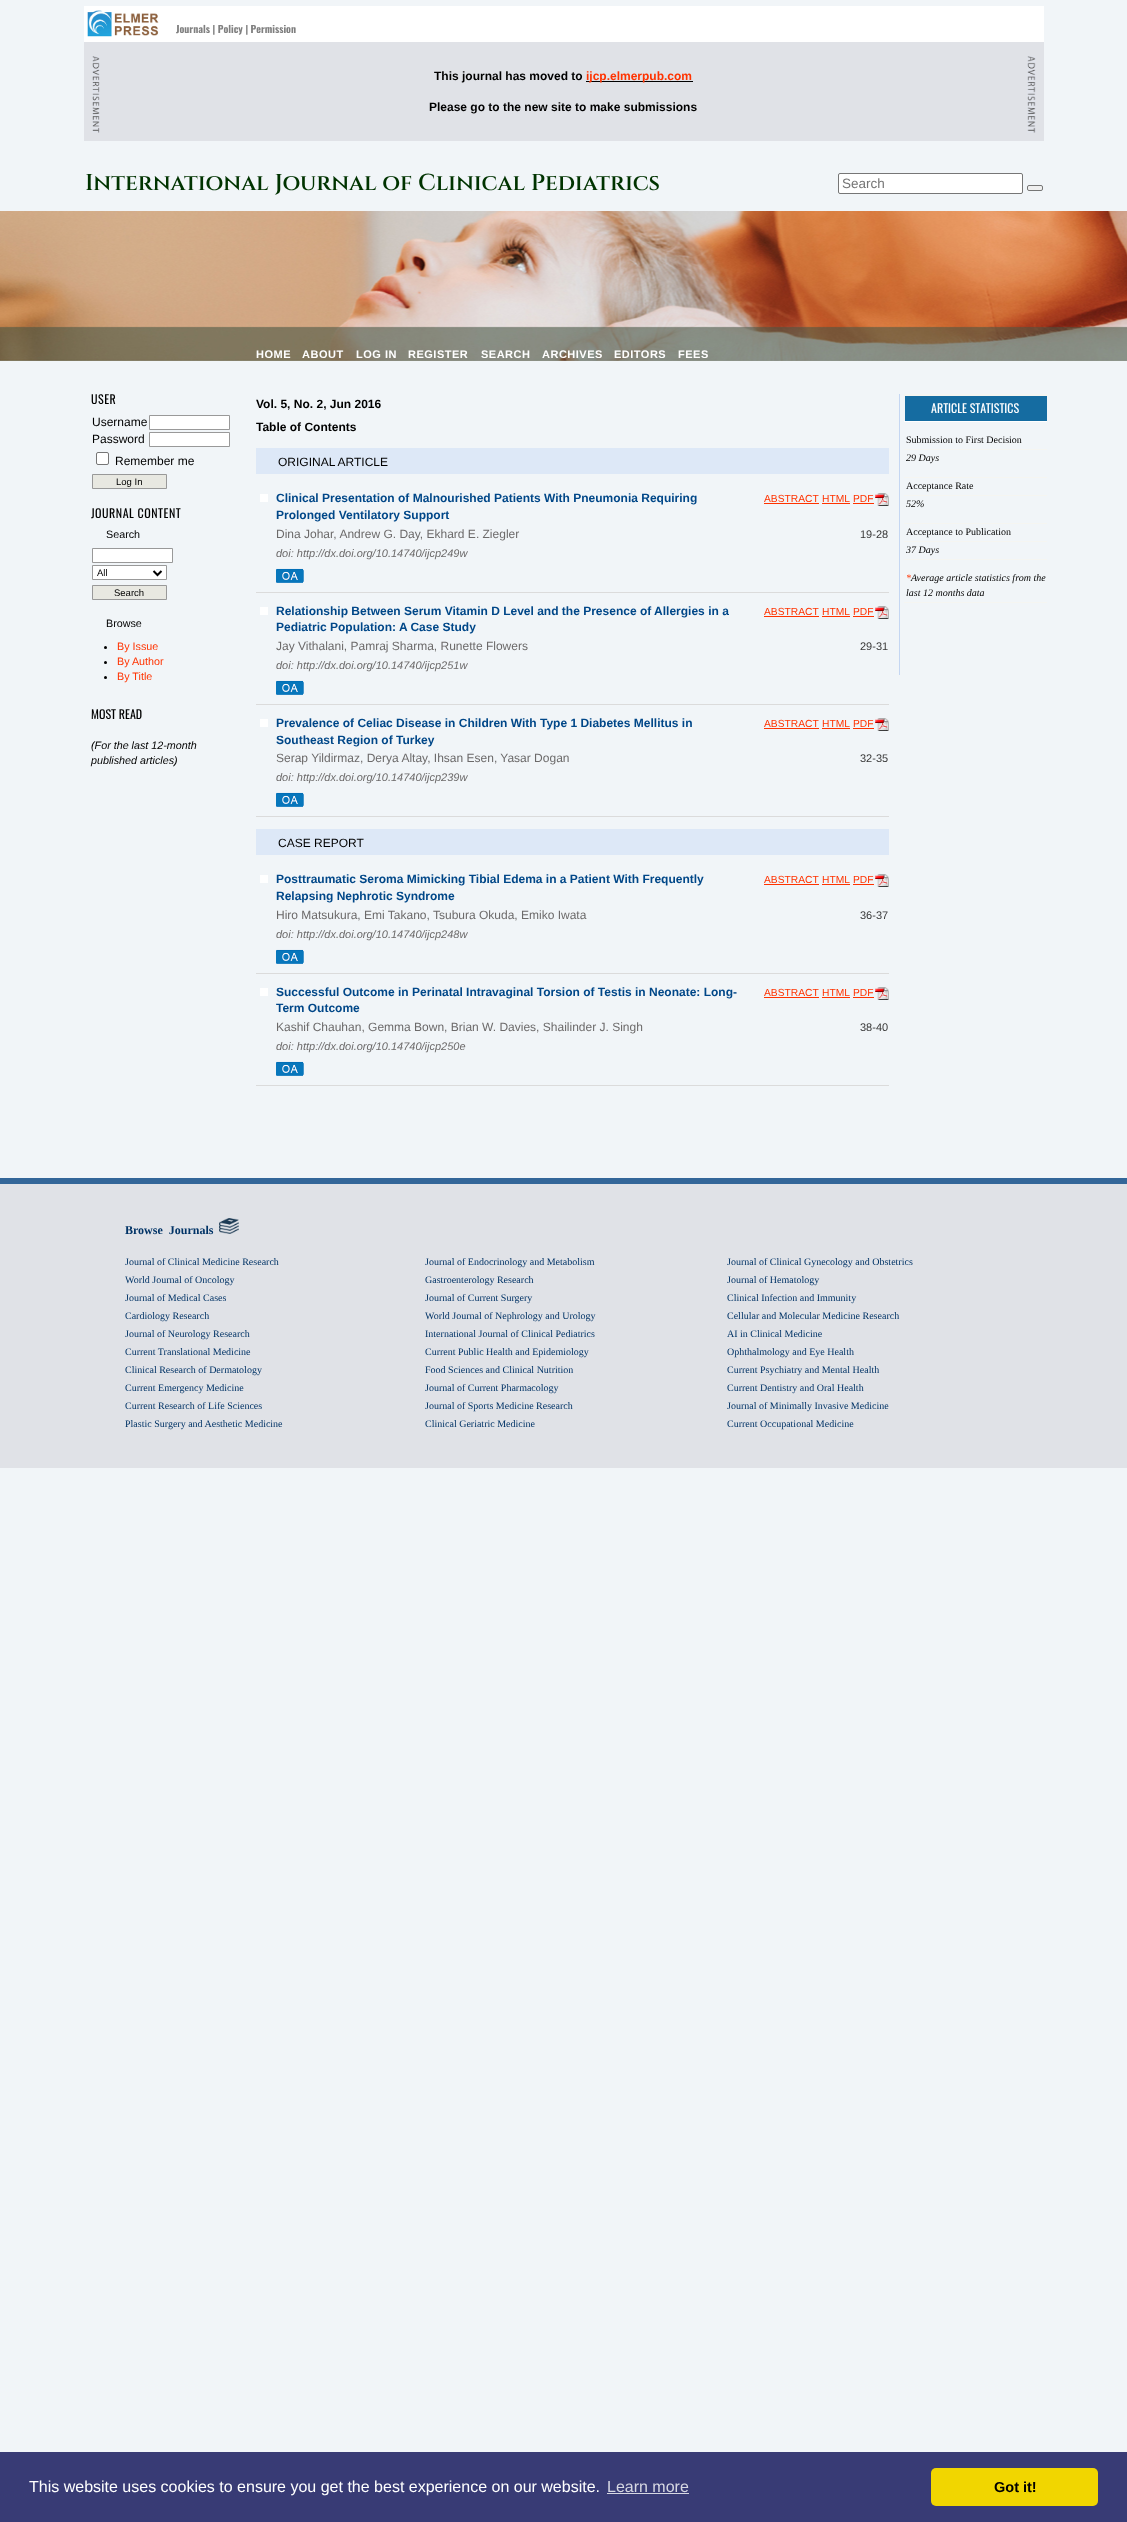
<!DOCTYPE html>
<meta charset="utf-8">
<style>body { margin: 0 } canvas { display: block }</style>
<canvas id="canvas" width="1127" height="2522"></canvas>
<script type="module">
  const canvas = document.getElementById("canvas");
  const g = canvas.getContext("2d");
  g.miterLimit = 4;
  g.fontKerning = "normal";
  function drawText(s, x, y, [font, color]) {
    g.font = font;
    g.fillStyle = color;
    g.fillText(s, x, y);
  }
  function fillBox(x, y, w, h, color) {
    g.fillStyle = color;
    g.fillRect(x, y, w, h);
  }
  function fillRounded(x, y, w, h, r, color) {
    g.fillStyle = color;
    g.beginPath();
    g.roundRect(x, y, w, h, r);
    g.fill();
  }
  async function drawPicture(src, x, y, w, h) {
    const img = new Image();
    img.src = src;
    await img.decode();
    g.drawImage(img, x, y, w, h);
  }

  const s1 = ["bold 10px Oswald", "#808080"];
  const s2 = ["bold 12px Liberation Sans", "#000000"];
  const s3 = ["bold 12px Liberation Sans", "#FF3300"];
  const s4 = ["600 23px Cinzel", "#003300"];
  const s5 = ["13.5px Liberation Sans", "#757575"];
  const s6 = ["bold 11px Liberation Sans", "#FFFFFF"];
  const s7 = ["12px Liberation Sans", "#000000"];
  const s8 = ["bold 12px Liberation Sans", "#004788"];
  const s9 = ["10.25px Liberation Sans", "#FF3300"];
  const s10 = ["12px Liberation Sans", "#6C6A6A"];
  const s11 = ["11px Liberation Sans", "#383838"];
  const s12 = ["italic 11px Liberation Sans", "#6C6A6A"];
  const s13 = ["12px Oswald", "#000000"];
  const s14 = ["9.5px Liberation Sans", "#000000"];
  const s15 = ["10.75px Liberation Sans", "#000000"];
  const s16 = ["10.75px Liberation Sans", "#FF3300"];
  const s17 = ["italic 10.75px Liberation Sans", "#000000"];
  const s18 = ["12px Oswald", "#FFFFFF"];
  const s19 = ["10px Liberation Serif", "#000000"];
  const s20 = ["italic 10px Liberation Serif", "#000000"];
  const s21 = ["italic 10px Liberation Serif", "#FF3300"];
  const s22 = ["bold 12px Liberation Serif", "#003366"];
  const s23 = ["10px Liberation Serif", "#003366"];
  const s24 = ["16px Liberation Sans", "#FFFFFF"];
  const s25 = ["16px Liberation Sans", "#D7D8E3"];
  const s26 = ["bold 14.5px Liberation Sans", "#000000"];

  fillBox(0, 0, 1127, 2522, "#F1F5F8");
  await drawPicture("pic1.png", 0, 211, 1127, 150);
  fillBox(84, 6, 960, 36, "#FFFFFF");
  await drawPicture("pic2.png", 87, 10, 72, 27);
  drawText("Journals | Policy | Permission", 176, 33, s1);
  fillBox(84, 42, 960, 99, "#E0E2E7");
  await drawPicture("pic3.png", 92, 56, 8, 77);
  drawText("This journal has moved to", 434, 80, s2);
  fillBox(586, 81, 107, 1, "#000000");
  drawText("ijcp.elmerpub.com", 586, 80, s3);
  drawText("Please go to the new site to make submissions", 429, 111, s2);
  await drawPicture("pic4.png", 1027, 56, 9, 77);
  drawText("International Journal of Clinical Pediatrics", 85, 190, s4);
  g.fillStyle = "#FFFFFF";
  g.beginPath();
  g.roundRect(838.5, 173.5, 184, 20, 1.5);
  g.fill();
  g.strokeStyle = "#767676";
  g.stroke();
  drawText("Search", 842, 188, s5);
  g.fillStyle = "#EFEFEF";
  g.beginPath();
  g.roundRect(1027.5, 185.5, 15, 5, 1.5);
  g.fill();
  g.stroke();
  g.letterSpacing = "0.5px";
  drawText("HOME", 256, 358, s6);
  drawText("ABOUT", 302, 358, s6);
  drawText("LOG IN", 356, 358, s6);
  drawText("REGISTER", 408, 358, s6);
  drawText("SEARCH", 481, 358, s6);
  drawText("ARCHIVES", 542, 358, s6);
  drawText("EDITORS", 614, 358, s6);
  drawText("FEES", 678, 358, s6);
  g.letterSpacing = "0px";
  drawText("Vol. 5, No. 2, Jun 2016", 256, 408, s2);
  drawText("Table of Contents", 256, 431, s2);
  fillBox(256, 448, 633, 26, "#DDE8F7");
  drawText("ORIGINAL ARTICLE", 278, 466, s7);
  await drawPicture("pic5.png", 276, 568, 28, 15);
  fillBox(256, 592, 633, 1, "#DBDBDB");
  fillBox(260, 494, 8, 8, "#FFFFFF");
  drawText("Clinical Presentation of Malnourished Patients With Pneumonia Requiring", 276, 502, s8);
  drawText("Prolonged Ventilatory Support", 276, 519, s8);
  await drawPicture("pic6.png", 875, 493, 14, 13);
  drawText("ABSTRACT", 764, 502, s9);
  fillBox(764, 503, 55, 1, "#FF3300");
  drawText("HTML", 822, 502, s9);
  fillBox(822, 503, 28, 1, "#FF3300");
  drawText("PDF", 853, 502, s9);
  fillBox(853, 503, 21, 1, "#FF3300");
  drawText("Dina Johar, Andrew G. Day, Ekhard E. Ziegler", 276, 538, s10);
  drawText("19-28", 860, 538, s11);
  drawText("doi: http://dx.doi.org/10.14740/ijcp249w", 276, 557, s12);
  await drawPicture("pic5.png", 276, 680, 28, 15);
  fillBox(256, 704, 633, 1, "#DBDBDB");
  fillBox(260, 607, 8, 8, "#FFFFFF");
  drawText("Relationship Between Serum Vitamin D Level and the Presence of Allergies in a", 276, 615, s8);
  drawText("Pediatric Population: A Case Study", 276, 631, s8);
  await drawPicture("pic6.png", 875, 606, 14, 13);
  drawText("ABSTRACT", 764, 615, s9);
  fillBox(764, 616, 55, 1, "#FF3300");
  drawText("HTML", 822, 615, s9);
  fillBox(822, 616, 28, 1, "#FF3300");
  drawText("PDF", 853, 615, s9);
  fillBox(853, 616, 21, 1, "#FF3300");
  drawText("Jay Vithalani, Pamraj Sharma, Runette Flowers", 276, 650, s10);
  drawText("29-31", 860, 650, s11);
  drawText("doi: http://dx.doi.org/10.14740/ijcp251w", 276, 669, s12);
  await drawPicture("pic5.png", 276, 792, 28, 15);
  fillBox(256, 816, 633, 1, "#DBDBDB");
  fillBox(260, 719, 8, 8, "#FFFFFF");
  drawText("Prevalence of Celiac Disease in Children With Type 1 Diabetes Mellitus in", 276, 727, s8);
  drawText("Southeast Region of Turkey", 276, 744, s8);
  await drawPicture("pic6.png", 875, 718, 14, 13);
  drawText("ABSTRACT", 764, 727, s9);
  fillBox(764, 728, 55, 1, "#FF3300");
  drawText("HTML", 822, 727, s9);
  fillBox(822, 728, 28, 1, "#FF3300");
  drawText("PDF", 853, 727, s9);
  fillBox(853, 728, 21, 1, "#FF3300");
  drawText("Serap Yildirmaz, Derya Altay, Ihsan Esen, Yasar Dogan", 276, 762, s10);
  drawText("32-35", 860, 762, s11);
  drawText("doi: http://dx.doi.org/10.14740/ijcp239w", 276, 781, s12);
  fillBox(256, 829, 633, 26, "#DDE8F7");
  drawText("CASE REPORT", 278, 847, s7);
  await drawPicture("pic5.png", 276, 949, 28, 15);
  fillBox(256, 973, 633, 1, "#DBDBDB");
  fillBox(260, 875, 8, 8, "#FFFFFF");
  drawText("Posttraumatic Seroma Mimicking Tibial Edema in a Patient With Frequently", 276, 883, s8);
  drawText("Relapsing Nephrotic Syndrome", 276, 900, s8);
  await drawPicture("pic6.png", 875, 874, 14, 13);
  drawText("ABSTRACT", 764, 883, s9);
  fillBox(764, 884, 55, 1, "#FF3300");
  drawText("HTML", 822, 883, s9);
  fillBox(822, 884, 28, 1, "#FF3300");
  drawText("PDF", 853, 883, s9);
  fillBox(853, 884, 21, 1, "#FF3300");
  drawText("Hiro Matsukura, Emi Takano, Tsubura Okuda, Emiko Iwata", 276, 919, s10);
  drawText("36-37", 860, 919, s11);
  drawText("doi: http://dx.doi.org/10.14740/ijcp248w", 276, 938, s12);
  await drawPicture("pic5.png", 276, 1061, 28, 15);
  fillBox(256, 1085, 633, 1, "#DBDBDB");
  fillBox(260, 988, 8, 8, "#FFFFFF");
  drawText("Successful Outcome in Perinatal Intravaginal Torsion of Testis in Neonate: Long-", 276, 996, s8);
  drawText("Term Outcome", 276, 1012, s8);
  await drawPicture("pic6.png", 875, 987, 14, 13);
  drawText("ABSTRACT", 764, 996, s9);
  fillBox(764, 997, 55, 1, "#FF3300");
  drawText("HTML", 822, 996, s9);
  fillBox(822, 997, 28, 1, "#FF3300");
  drawText("PDF", 853, 996, s9);
  fillBox(853, 997, 21, 1, "#FF3300");
  drawText("Kashif Chauhan, Gemma Bown, Brian W. Davies, Shailinder J. Singh", 276, 1031, s10);
  drawText("38-40", 860, 1031, s11);
  drawText("doi: http://dx.doi.org/10.14740/ijcp250e", 276, 1050, s12);
  g.letterSpacing = "0.5px";
  drawText("USER", 91, 404, s13);
  g.letterSpacing = "0px";
  drawText("Username", 92, 426, s7);
  g.fillStyle = "#FFFFFF";
  g.beginPath();
  g.rect(149.5, 415.5, 80, 14);
  g.fill();
  g.strokeStyle = "#999999";
  g.stroke();
  drawText("Password", 92, 443, s7);
  g.fillStyle = "#FFFFFF";
  g.beginPath();
  g.rect(149.5, 432.5, 80, 14);
  g.fill();
  g.stroke();
  g.beginPath();
  g.roundRect(96.5, 452.5, 12, 12, 1.5);
  g.fill();
  g.strokeStyle = "#767676";
  g.stroke();
  drawText("Remember me", 115, 465, s7);
  g.fillStyle = "#E8E8E1";
  g.beginPath();
  g.rect(92.5, 474.5, 74, 14);
  g.fill();
  g.strokeStyle = "#999999";
  g.stroke();
  drawText("Log In", 116, 485, s14);
  g.letterSpacing = "0.5px";
  drawText("JOURNAL CONTENT", 91, 518, s13);
  g.letterSpacing = "0px";
  drawText("Search", 106, 538, s15);
  g.fillStyle = "#FFFFFF";
  g.beginPath();
  g.rect(92.5, 548.5, 80, 14);
  g.fill();
  g.stroke();
  g.beginPath();
  g.rect(92.5, 565.5, 74, 14);
  g.fill();
  g.stroke();
  g.beginPath();
  g.moveTo(153.5, 571);
  g.lineTo(157.5, 575);
  g.lineTo(161.5, 571);
  g.strokeStyle = "#000000";
  g.lineWidth = 2;
  g.stroke();
  drawText("All", 97, 576, s14);
  g.fillStyle = "#E8E8E1";
  g.beginPath();
  g.rect(92.5, 585.5, 74, 14);
  g.fill();
  g.strokeStyle = "#999999";
  g.lineWidth = 1;
  g.stroke();
  drawText("Search", 114, 596, s14);
  drawText("Browse", 106, 627, s15);
  g.beginPath();
  g.arc(105.5, 647.5, 1.5, 0, Math.PI * 2);
  g.fill();
  drawText("By Issue", 117, 650, s16);
  g.fillStyle = "#000000";
  g.beginPath();
  g.arc(105.5, 662.5, 1.5, 0, Math.PI * 2);
  g.fill();
  drawText("By Author", 117, 665, s16);
  g.fillStyle = "#000000";
  g.beginPath();
  g.arc(105.5, 677.5, 1.5, 0, Math.PI * 2);
  g.fill();
  drawText("By Title", 117, 680, s16);
  drawText("MOST READ", 91, 719, s13);
  drawText("(For the last 12-month", 91, 749, s17);
  drawText("published articles)", 91, 764, s17);
  fillBox(899, 394, 1, 281, "#C4D6F2");
  fillBox(905, 396, 142, 25, "#156CA1");
  fillBox(904, 421, 143, 1, "#FFFFFF");
  fillBox(904, 394, 144, 2, "#F5F5F1");
  drawText("ARTICLE STATISTICS", 931, 413, s18);
  drawText("Submission to First Decision", 906, 443, s19);
  fillBox(904, 449, 143, 1, "#F5F5F1");
  drawText("29 Days", 906, 461, s20);
  fillBox(904, 477, 143, 1, "#F5F5F1");
  drawText("Acceptance Rate", 906, 489, s19);
  fillBox(904, 495, 143, 1, "#F5F5F1");
  drawText("52%", 906, 507, s20);
  fillBox(904, 523, 143, 1, "#F5F5F1");
  drawText("Acceptance to Publication", 906, 535, s19);
  fillBox(904, 541, 143, 1, "#F5F5F1");
  drawText("37 Days", 906, 553, s20);
  fillBox(904, 559, 143, 1, "#F5F5F1");
  fillBox(904, 602, 143, 1, "#F5F5F1");
  drawText("*", 906, 581, s21);
  drawText("Average article statistics from the", 911, 581, s20);
  drawText("last 12 months data", 906, 596, s20);
  fillBox(0, 1178, 1127, 6, "#336699");
  fillBox(0, 1184, 1127, 284, "#E0E2E7");
  drawText("Browse  Journals", 125, 1234, s22);
  await drawPicture("pic7.png", 219, 1218, 20, 16);
  drawText("Journal of Clinical Medicine Research", 125, 1265, s23);
  drawText("Journal of Endocrinology and Metabolism", 425, 1265, s23);
  drawText("Journal of Clinical Gynecology and Obstetrics", 727, 1265, s23);
  drawText("World Journal of Oncology", 125, 1283, s23);
  drawText("Gastroenterology Research", 425, 1283, s23);
  drawText("Journal of Hematology", 727, 1283, s23);
  drawText("Journal of Medical Cases", 125, 1301, s23);
  drawText("Journal of Current Surgery", 425, 1301, s23);
  drawText("Clinical Infection and Immunity", 727, 1301, s23);
  drawText("Cardiology Research", 125, 1319, s23);
  drawText("World Journal of Nephrology and Urology", 425, 1319, s23);
  drawText("Cellular and Molecular Medicine Research", 727, 1319, s23);
  drawText("Journal of Neurology Research", 125, 1337, s23);
  drawText("International Journal of Clinical Pediatrics", 425, 1337, s23);
  drawText("AI in Clinical Medicine", 727, 1337, s23);
  drawText("Current Translational Medicine", 125, 1355, s23);
  drawText("Current Public Health and Epidemiology", 425, 1355, s23);
  drawText("Ophthalmology and Eye Health", 727, 1355, s23);
  drawText("Clinical Research of Dermatology", 125, 1373, s23);
  drawText("Food Sciences and Clinical Nutrition", 425, 1373, s23);
  drawText("Current Psychiatry and Mental Health", 727, 1373, s23);
  drawText("Current Emergency Medicine", 125, 1391, s23);
  drawText("Journal of Current Pharmacology", 425, 1391, s23);
  drawText("Current Dentistry and Oral Health", 727, 1391, s23);
  drawText("Current Research of Life Sciences", 125, 1409, s23);
  drawText("Journal of Sports Medicine Research", 425, 1409, s23);
  drawText("Journal of Minimally Invasive Medicine", 727, 1409, s23);
  drawText("Plastic Surgery and Aesthetic Medicine", 125, 1427, s23);
  drawText("Clinical Geriatric Medicine", 425, 1427, s23);
  drawText("Current Occupational Medicine", 727, 1427, s23);
  fillBox(0, 2452, 1127, 70, "#383B75");
  drawText("This website uses cookies to ensure you get the best experience on our website.", 29, 2492, s24);
  drawText("Learn more", 607, 2492, s25);
  fillBox(607, 2493, 82, 1, "#D7D8E3");
  fillRounded(931, 2468, 167, 38, 5, "#F1D600");
  drawText("Got it!", 994, 2492, s26);
</script>
